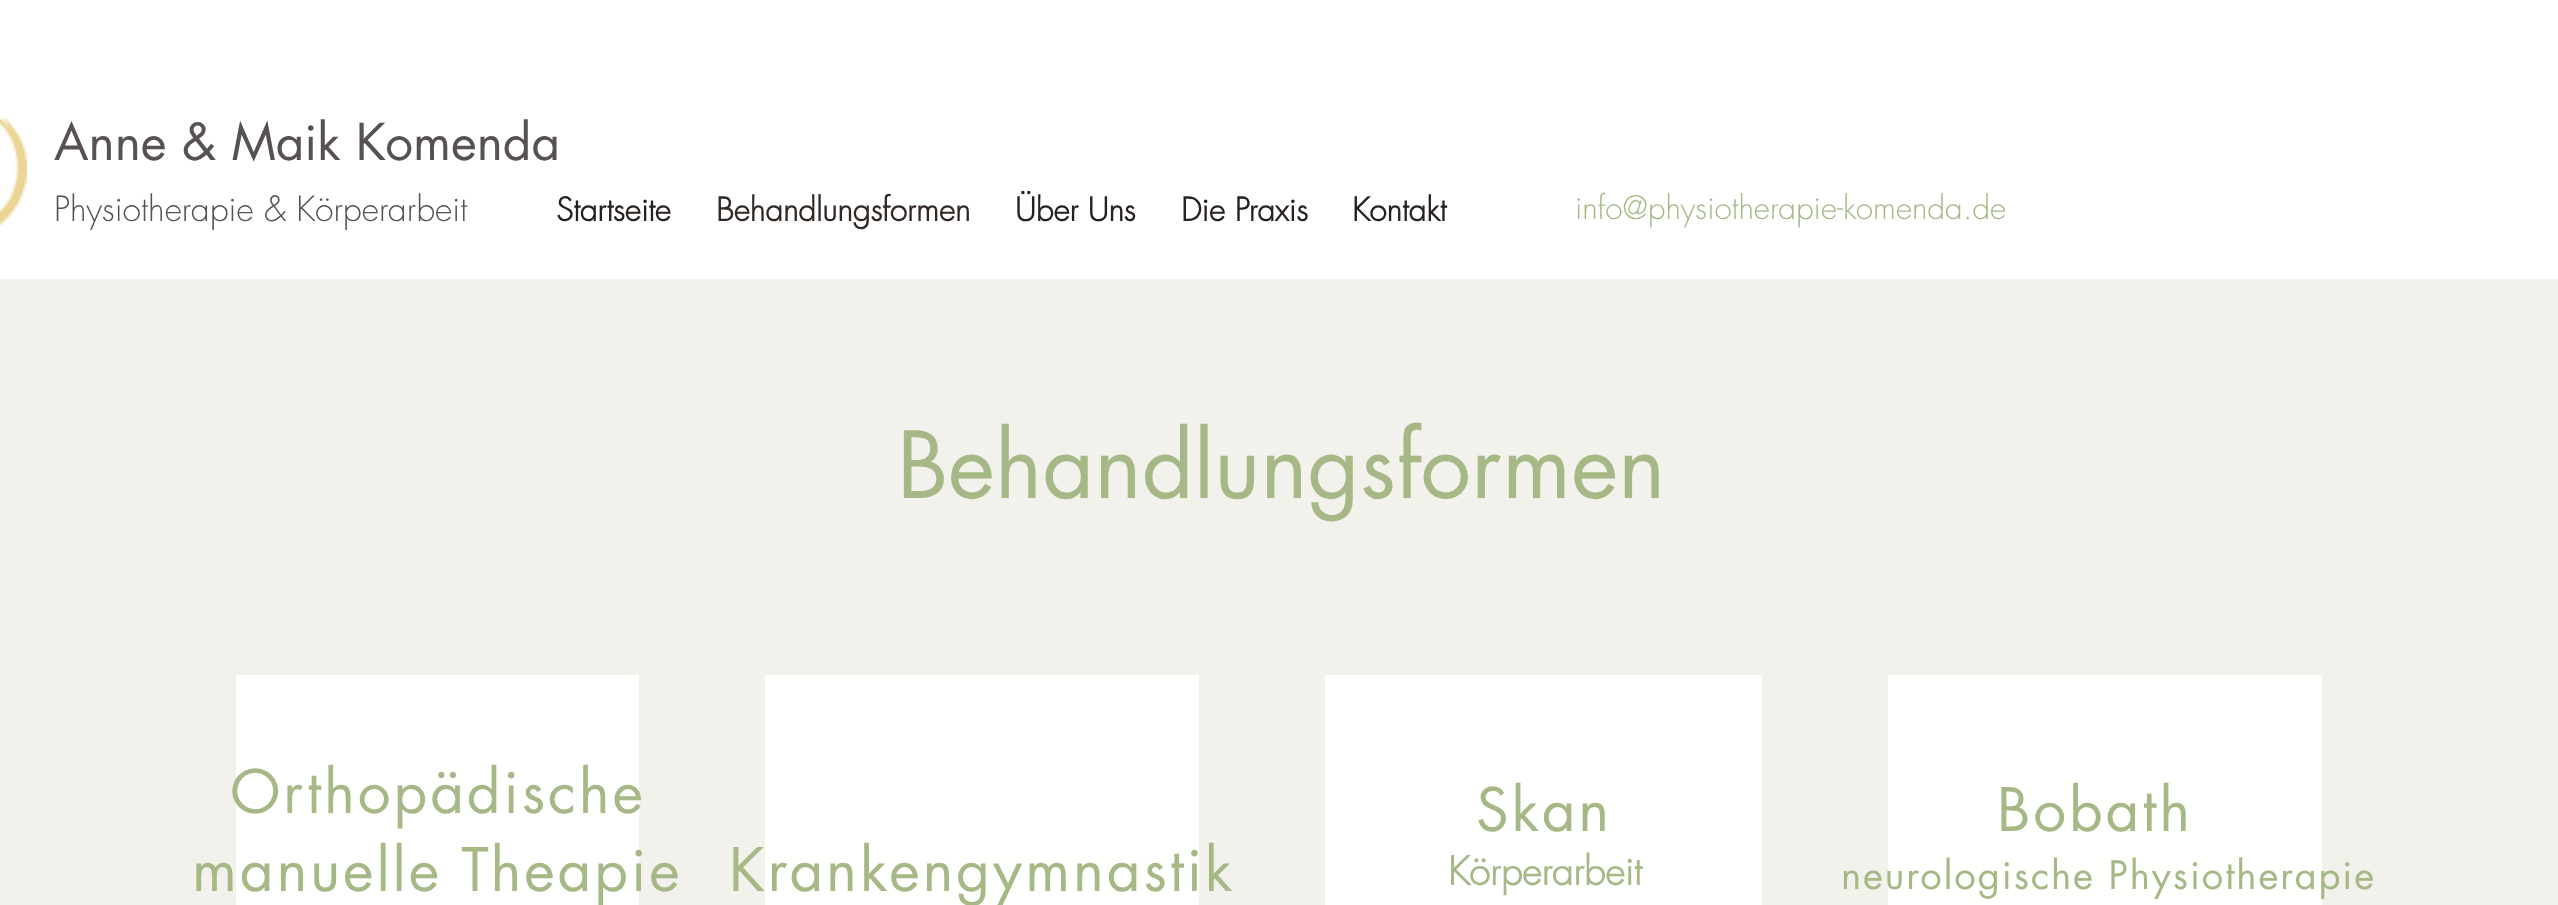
<!DOCTYPE html>
<meta charset="utf-8">
<style>body { margin: 0 } canvas { display: block }</style>
<canvas id="canvas" width="2558" height="905"></canvas>
<script type="module">
  const canvas = document.getElementById("canvas");
  const g = canvas.getContext("2d");
  g.miterLimit = 4;
  g.fontKerning = "normal";
  function drawText(s, x, y, [font, color]) {
    g.font = font;
    g.fillStyle = color;
    g.fillText(s, x, y);
  }
  function fillBox(x, y, w, h, color) {
    g.fillStyle = color;
    g.fillRect(x, y, w, h);
  }
  async function drawPicture(src, x, y, w, h) {
    const img = new Image();
    img.src = src;
    await img.decode();
    g.drawImage(img, x, y, w, h);
  }

  const s1 = ["49.5px futura", "#575151"];
  const s2 = ["300 33.75px futura", "#575151"];
  const s3 = ["bold 31.5px futura", "#27211E"];
  const s4 = ["bold 31.5px futura", "#312824"];
  const s5 = ["300 31.5px futura", "#A5B886"];
  const s6 = ["90px futura", "#A5B886"];
  const s7 = ["58.5px futura", "#A5B886"];
  const s8 = ["bold 38.25px futura", "#A5B886"];
  const s9 = ["38.25px futura", "#A5B886"];

  fillBox(0, 0, 2558, 905, "#FFFFFF");
  await drawPicture("pic1.png", 0, 115, 27, 111);
  drawText("Anne & Maik Komenda", 54, 160, s1);
  drawText("Physiotherapie & Körperarbeit", 54, 221, s2);
  drawText("Startseite", 556, 221, s3);
  drawText("Behandlungsformen", 716, 221, s4);
  drawText("Über Uns", 1015, 221, s3);
  drawText("Die Praxis", 1181, 221, s3);
  drawText("Kontakt", 1352, 221, s3);
  drawText("info@physiotherapie-komenda.de", 1575, 219, s5);
  fillBox(0, 279, 2558, 626, "#F3F1EB");
  drawText("Behandlungsformen", 897, 498, s6);
  fillBox(236, 675, 403, 230, "#FFFFFF");
  g.letterSpacing = "2.9px";
  drawText("Orthopädische", 230, 813, s7);
  drawText("manuelle Theapie", 192, 891, s7);
  fillBox(765, 675, 434, 230, "#FFFFFE");
  drawText("Krankengymnastik", 729, 891, s7);
  fillBox(1325, 675, 437, 230, "#FFFFFF");
  drawText("Skan", 1476, 831, s7);
  g.letterSpacing = "0px";
  drawText("Körperarbeit", 1448, 885, s8);
  fillBox(1888, 675, 434, 230, "#FFFFFE");
  g.letterSpacing = "2.9px";
  drawText("Bobath", 1997, 831, s7);
  g.letterSpacing = "1.9px";
  drawText("neurologische Physiotherapie", 1841, 889, s9);
</script>
